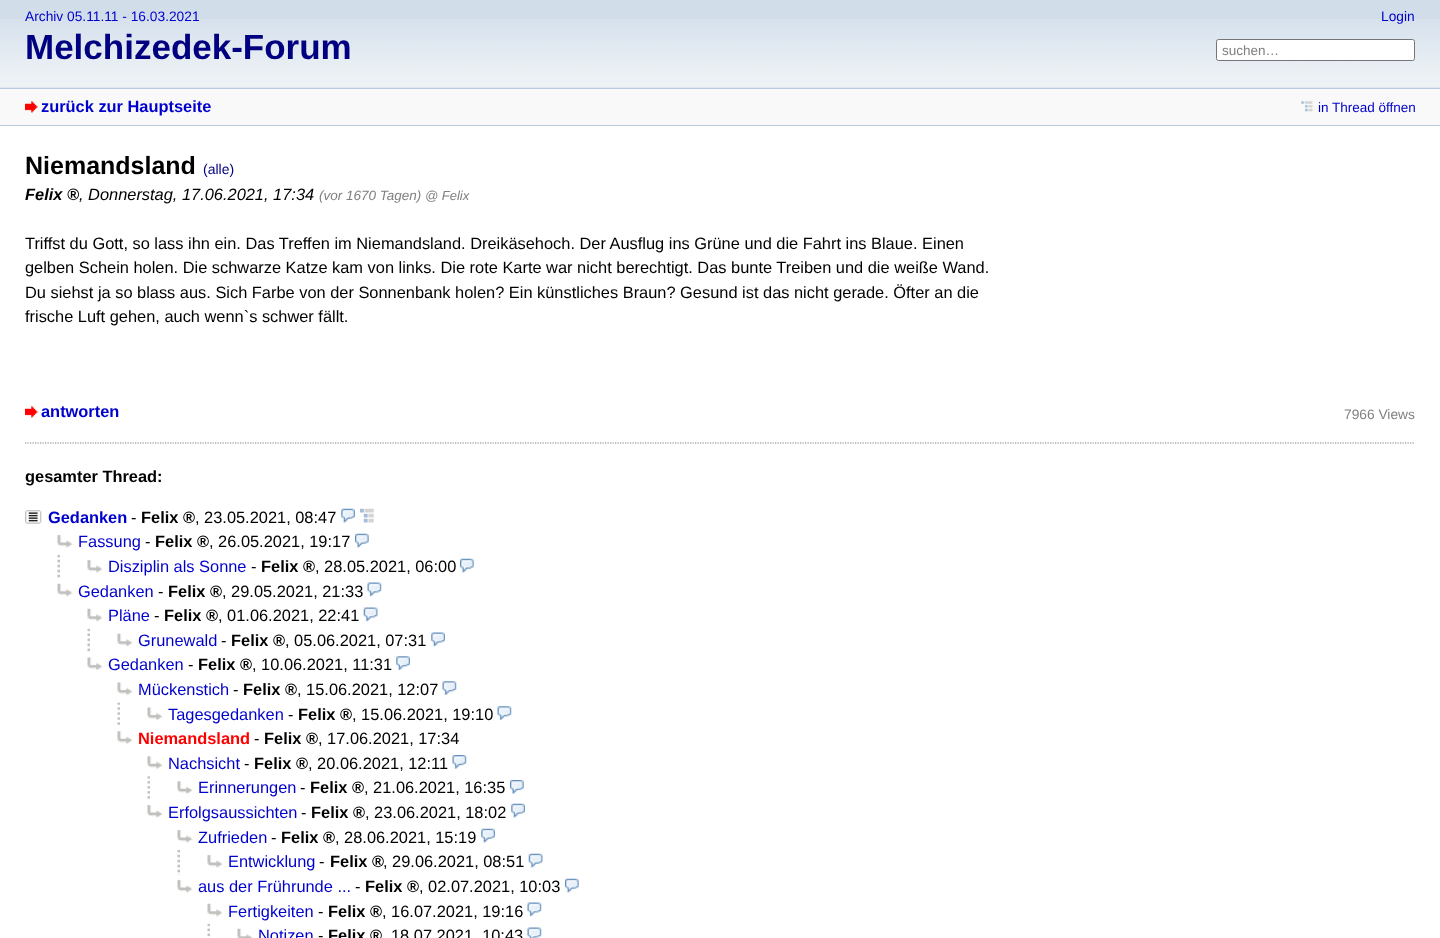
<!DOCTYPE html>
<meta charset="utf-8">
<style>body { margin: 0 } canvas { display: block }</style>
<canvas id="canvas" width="1440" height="938"></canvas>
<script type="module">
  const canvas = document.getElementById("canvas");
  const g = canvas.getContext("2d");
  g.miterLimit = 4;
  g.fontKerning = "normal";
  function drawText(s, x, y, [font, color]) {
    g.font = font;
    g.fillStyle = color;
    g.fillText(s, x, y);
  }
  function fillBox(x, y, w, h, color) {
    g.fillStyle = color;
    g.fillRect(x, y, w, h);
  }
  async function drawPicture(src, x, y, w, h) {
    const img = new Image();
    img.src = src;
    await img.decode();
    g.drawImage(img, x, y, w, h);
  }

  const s1 = ["13.75px Liberation Sans", "#0000CC"];
  const s2 = ["bold 35px Liberation Sans", "#000080"];
  const s3 = ["13.5px Liberation Sans", "#808080"];
  const s4 = ["bold 16.4px Liberation Sans", "#0000CC"];
  const s5 = ["13.5px Liberation Sans", "#0000CC"];
  const s6 = ["bold 25px Liberation Sans", "#000000"];
  const s7 = ["14px Liberation Sans", "#000080"];
  const s8 = ["italic bold 16.4px Liberation Sans", "#000000"];
  const s9 = ["italic 16.4px Liberation Sans", "#000000"];
  const s10 = ["italic 13.5px Liberation Sans", "#808080"];
  const s11 = ["italic 13px Liberation Sans", "#808080"];
  const s12 = ["16.4px Liberation Sans", "#000000"];
  const s13 = ["13.75px Liberation Sans", "#808080"];
  const s14 = ["bold 16.4px Liberation Sans", "#000000"];
  const s15 = ["16.4px Liberation Sans", "#0000CC"];
  const s16 = ["bold 16.4px Liberation Sans", "#FF0000"];

  fillBox(0, 0, 1440, 938, "#F9F9F9");
  fillBox(0, 0, 1440, 88, "#D2DDEA");
  await drawPicture("pic1.png", 0, 19, 1440, 69);
  drawText("Archiv 05.11.11 - 16.03.2021", 25, 21, s1);
  drawText("Melchizedek-Forum", 25, 59, s2);
  drawText("Login", 1381, 21, s1);
  g.fillStyle = "#FFFFFF";
  g.beginPath();
  g.roundRect(1216.5, 39.5, 198, 21, 2);
  g.fill();
  g.strokeStyle = "#767676";
  g.stroke();
  drawText("suchen…", 1222, 55, s3);
  fillBox(0, 88, 1440, 1, "#BACBDF");
  fillBox(0, 125, 1440, 1, "#BACBDF");
  await drawPicture("pic2.png", 25, 101, 13, 12);
  drawText("zurück zur Hauptseite", 41, 112, s4);
  await drawPicture("pic3.png", 1301, 101, 12, 11);
  drawText("in Thread öffnen", 1318, 112, s5);
  fillBox(0, 126, 1440, 812, "#FFFFFF");
  drawText("Niemandsland", 25, 174, s6);
  drawText("(alle)", 203, 174, s7);
  drawText("Felix ®", 25, 200, s8);
  drawText(", Donnerstag, 17.06.2021, 17:34", 79, 200, s9);
  drawText("(vor 1670 Tagen)", 319, 200, s10);
  drawText("@ Felix", 425, 200, s11);
  drawText("Triffst du Gott, so lass ihn ein. Das Treffen im Niemandsland. Dreikäsehoch. Der Ausflug ins Grüne und die Fahrt ins Blaue. Einen", 25, 249, s12);
  drawText("gelben Schein holen. Die schwarze Katze kam von links. Die rote Karte war nicht berechtigt. Das bunte Treiben und die weiße Wand.", 25, 273, s12);
  drawText("Du siehst ja so blass aus. Sich Farbe von der Sonnenbank holen? Ein künstliches Braun? Gesund ist das nicht gerade. Öfter an die", 25, 298, s12);
  drawText("frische Luft gehen, auch wenn`s schwer fällt.", 25, 322, s12);
  await drawPicture("pic4.png", 25, 406, 13, 12);
  drawText("antworten", 41, 417, s4);
  drawText("7966 Views", 1344, 419, s13);
  g.beginPath();
  g.moveTo(25, 443);
  g.lineTo(1415, 443);
  g.strokeStyle = "#808080";
  g.lineWidth = 1.2;
  g.setLineDash([1.25, 1.25]);
  g.stroke();
  drawText("gesamter Thread:", 25, 482, s14);
  await drawPicture("pic5.png", 25, 510, 17, 14);
  drawText("Gedanken", 48, 523, s4);
  drawText("-", 131, 523, s12);
  drawText("Felix ®", 141, 523, s14);
  drawText(", 23.05.2021, 08:47", 195, 523, s12);
  await drawPicture("pic6.png", 341, 508, 14, 15);
  await drawPicture("pic7.png", 360, 508, 14, 15);
  await drawPicture("pic8.png", 57, 535, 16, 13);
  drawText("Fassung", 78, 547, s15);
  drawText("-", 145, 547, s12);
  drawText("Felix ®", 155, 547, s14);
  drawText(", 26.05.2021, 19:17", 209, 547, s12);
  await drawPicture("pic9.png", 355, 533, 14, 15);
  await drawPicture("pic10.png", 57, 555, 3, 23);
  await drawPicture("pic11.png", 87, 560, 16, 13);
  drawText("Disziplin als Sonne", 108, 572, s15);
  drawText("-", 251, 572, s12);
  drawText("Felix ®", 261, 572, s14);
  drawText(", 28.05.2021, 06:00", 315, 572, s12);
  await drawPicture("pic12.png", 460, 558, 14, 15);
  await drawPicture("pic13.png", 57, 583, 16, 14);
  drawText("Gedanken", 78, 597, s15);
  drawText("-", 158, 597, s12);
  drawText("Felix ®", 168, 597, s14);
  drawText(", 29.05.2021, 21:33", 222, 597, s12);
  await drawPicture("pic14.png", 367, 582, 15, 15);
  await drawPicture("pic15.png", 87, 608, 16, 14);
  drawText("Pläne", 108, 621, s15);
  drawText("-", 154, 621, s12);
  drawText("Felix ®", 164, 621, s14);
  drawText(", 01.06.2021, 22:41", 218, 621, s12);
  await drawPicture("pic16.png", 363, 607, 15, 15);
  await drawPicture("pic17.png", 87, 628, 3, 24);
  await drawPicture("pic15.png", 117, 633, 16, 14);
  drawText("Grunewald", 138, 646, s15);
  drawText("-", 221, 646, s12);
  drawText("Felix ®", 231, 646, s14);
  drawText(", 05.06.2021, 07:31", 285, 646, s12);
  await drawPicture("pic18.png", 431, 632, 14, 15);
  await drawPicture("pic19.png", 87, 657, 16, 14);
  drawText("Gedanken", 108, 670, s15);
  drawText("-", 188, 670, s12);
  drawText("Felix ®", 198, 670, s14);
  drawText(", 10.06.2021, 11:31", 252, 670, s12);
  await drawPicture("pic20.png", 396, 656, 14, 14);
  await drawPicture("pic19.png", 117, 682, 16, 14);
  drawText("Mückenstich", 138, 695, s15);
  drawText("-", 233, 695, s12);
  drawText("Felix ®", 243, 695, s14);
  drawText(", 15.06.2021, 12:07", 297, 695, s12);
  await drawPicture("pic21.png", 442, 681, 15, 14);
  await drawPicture("pic22.png", 117, 702, 3, 23);
  await drawPicture("pic19.png", 147, 707, 16, 14);
  drawText("Tagesgedanken", 168, 720, s15);
  drawText("-", 288, 720, s12);
  drawText("Felix ®", 298, 720, s14);
  drawText(", 15.06.2021, 19:10", 352, 720, s12);
  await drawPicture("pic21.png", 497, 706, 15, 14);
  await drawPicture("pic23.png", 117, 731, 16, 13);
  drawText("Niemandsland", 138, 744, s16);
  drawText("-", 254, 744, s12);
  drawText("Felix ®", 264, 744, s14);
  drawText(", 17.06.2021, 17:34", 318, 744, s12);
  await drawPicture("pic23.png", 147, 756, 16, 13);
  drawText("Nachsicht", 168, 769, s15);
  drawText("-", 244, 769, s12);
  drawText("Felix ®", 254, 769, s14);
  drawText(", 20.06.2021, 12:11", 308, 769, s12);
  await drawPicture("pic24.png", 452, 755, 15, 14);
  await drawPicture("pic25.png", 147, 776, 3, 23);
  await drawPicture("pic26.png", 177, 781, 16, 13);
  drawText("Erinnerungen", 198, 793, s15);
  drawText("-", 300, 793, s12);
  drawText("Felix ®", 310, 793, s14);
  drawText(", 21.06.2021, 16:35", 364, 793, s12);
  await drawPicture("pic27.png", 510, 780, 14, 14);
  await drawPicture("pic11.png", 147, 805, 16, 13);
  drawText("Erfolgsaussichten", 168, 818, s15);
  drawText("-", 301, 818, s12);
  drawText("Felix ®", 311, 818, s14);
  drawText(", 23.06.2021, 18:02", 365, 818, s12);
  await drawPicture("pic6.png", 511, 803, 14, 15);
  await drawPicture("pic11.png", 177, 830, 16, 13);
  drawText("Zufrieden", 198, 843, s15);
  drawText("-", 271, 843, s12);
  drawText("Felix ®", 281, 843, s14);
  drawText(", 28.06.2021, 15:19", 335, 843, s12);
  await drawPicture("pic6.png", 481, 828, 14, 15);
  await drawPicture("pic28.png", 177, 850, 3, 25);
  await drawPicture("pic11.png", 207, 855, 16, 13);
  drawText("Entwicklung", 228, 867, s15);
  drawText("-", 319, 867, s12);
  drawText("Felix ®", 330, 867, s14);
  drawText(", 29.06.2021, 08:51", 383, 867, s12);
  await drawPicture("pic29.png", 528, 853, 15, 15);
  await drawPicture("pic11.png", 177, 880, 16, 13);
  drawText("aus der Frührunde ...", 198, 892, s15);
  drawText("-", 355, 892, s12);
  drawText("Felix ®", 365, 892, s14);
  drawText(", 02.07.2021, 10:03", 419, 892, s12);
  await drawPicture("pic12.png", 565, 878, 14, 15);
  await drawPicture("pic15.png", 207, 903, 16, 14);
  drawText("Fertigkeiten", 228, 917, s15);
  drawText("-", 318, 917, s12);
  drawText("Felix ®", 328, 917, s14);
  drawText(", 16.07.2021, 19:16", 382, 917, s12);
  await drawPicture("pic30.png", 527, 902, 15, 15);
  await drawPicture("pic31.png", 207, 923, 3, 14);
  await drawPicture("pic32.png", 237, 928, 16, 10);
  drawText("Notizen", 258, 941, s15);
  drawText("-", 318, 941, s12);
  drawText("Felix ®", 328, 941, s14);
  drawText("18.07.2021, 10:43", 391, 941, s12);
  await drawPicture("pic33.png", 527, 927, 15, 11);
</script>
